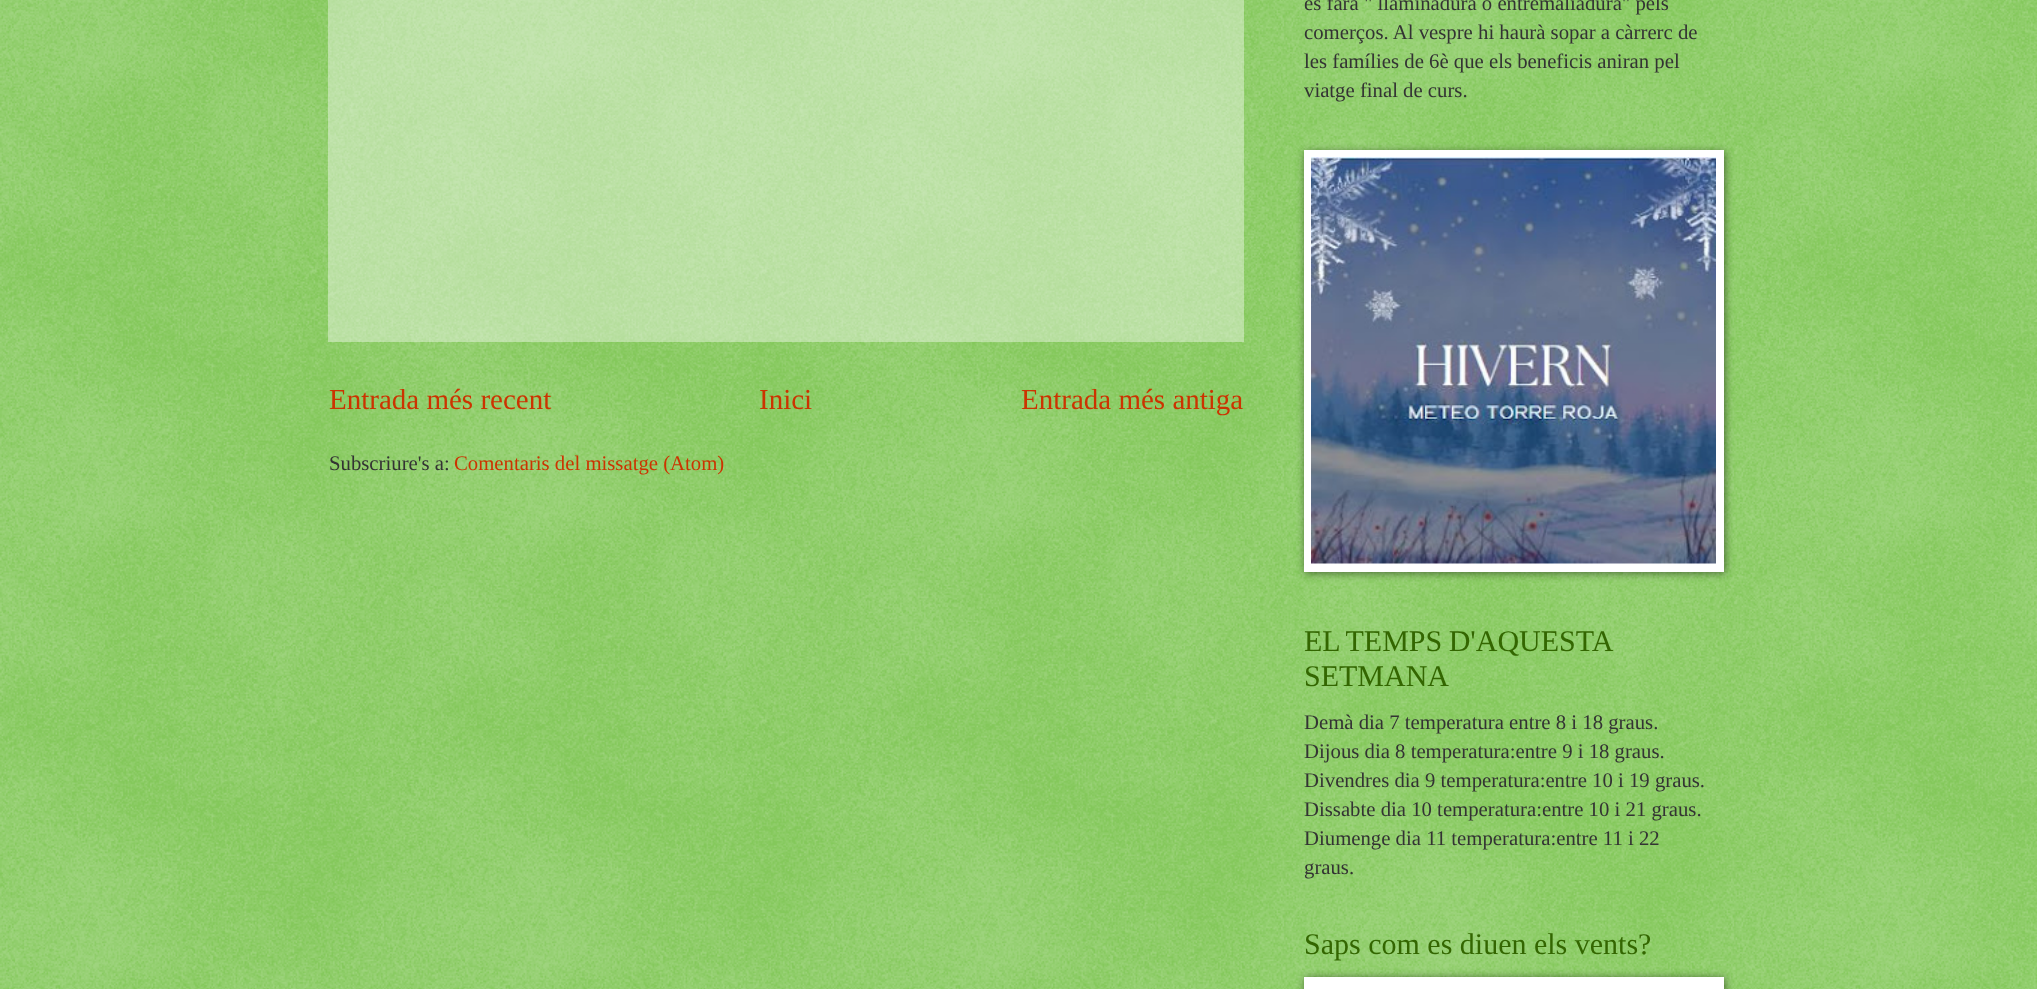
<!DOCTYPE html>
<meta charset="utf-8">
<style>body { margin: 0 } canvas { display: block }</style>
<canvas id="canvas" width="2037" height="989"></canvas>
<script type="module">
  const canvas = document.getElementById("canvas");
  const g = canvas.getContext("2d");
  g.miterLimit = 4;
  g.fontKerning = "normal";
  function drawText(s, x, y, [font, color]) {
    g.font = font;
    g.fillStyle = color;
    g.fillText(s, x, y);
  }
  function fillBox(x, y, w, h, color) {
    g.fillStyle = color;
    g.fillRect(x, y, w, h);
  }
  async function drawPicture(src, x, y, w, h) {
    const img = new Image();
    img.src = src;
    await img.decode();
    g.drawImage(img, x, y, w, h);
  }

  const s1 = ["29px Liberation Serif", "#CC3300"];
  const s2 = ["20.75px Liberation Serif", "#333333"];
  const s3 = ["20.75px Liberation Serif", "#CC3300"];
  const s4 = ["30px Liberation Serif", "#336600"];

  fillBox(0, 0, 2037, 989, "#66BB33");
  await drawPicture("pic1.png", 0, 0, 2037, 989);
  fillBox(328, 0, 916, 342, "rgba(255, 255, 255, 0.4)");
  drawText("Entrada més recent", 329, 409, s1);
  drawText("Inici", 759, 409, s1);
  drawText("Entrada més antiga", 1021, 409, s1);
  drawText("Subscriure's a:", 329, 470, s2);
  drawText("Comentaris del missatge (Atom)", 454, 470, s3);
  drawText("es farà \" llaminadura o entremaliadura\" pels", 1304, 10, s2);
  drawText("comerços. Al vespre hi haurà sopar a càrrerc de", 1304, 39, s2);
  drawText("les famílies de 6è que els beneficis aniran pel", 1304, 68, s2);
  drawText("viatge final de curs.", 1304, 97, s2);
  g.fillStyle = "rgba(0, 0, 0, 0.5)";
  g.filter = "blur(4px)";
  g.beginPath();
  g.rect(1305, 152, 420, 421);
  g.fill();
  g.filter = "none";
  fillBox(1304, 150, 420, 422, "#FFFFFF");
  await drawPicture("pic2.png", 1311, 157, 405, 407);
  g.wordSpacing = "-1px";
  drawText("EL TEMPS D'AQUESTA", 1304, 651, s4);
  g.wordSpacing = "0px";
  drawText("SETMANA", 1304, 686, s4);
  drawText("Demà dia 7 temperatura entre 8 i 18 graus.", 1304, 729, s2);
  drawText("Dijous dia 8 temperatura:entre 9 i 18 graus.", 1304, 758, s2);
  drawText("Divendres dia 9 temperatura:entre 10 i 19 graus.", 1304, 787, s2);
  drawText("Dissabte dia 10 temperatura:entre 10 i 21 graus.", 1304, 816, s2);
  drawText("Diumenge dia 11 temperatura:entre 11 i 22", 1304, 845, s2);
  drawText("graus.", 1304, 874, s2);
  drawText("Saps com es diuen els vents?", 1304, 954, s4);
  g.fillStyle = "rgba(0, 0, 0, 0.5)";
  g.filter = "blur(4px)";
  g.beginPath();
  g.rect(1305, 978, 420, 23);
  g.fill();
  g.filter = "none";
  fillBox(1304, 977, 420, 12, "#FFFFFF");
</script>
